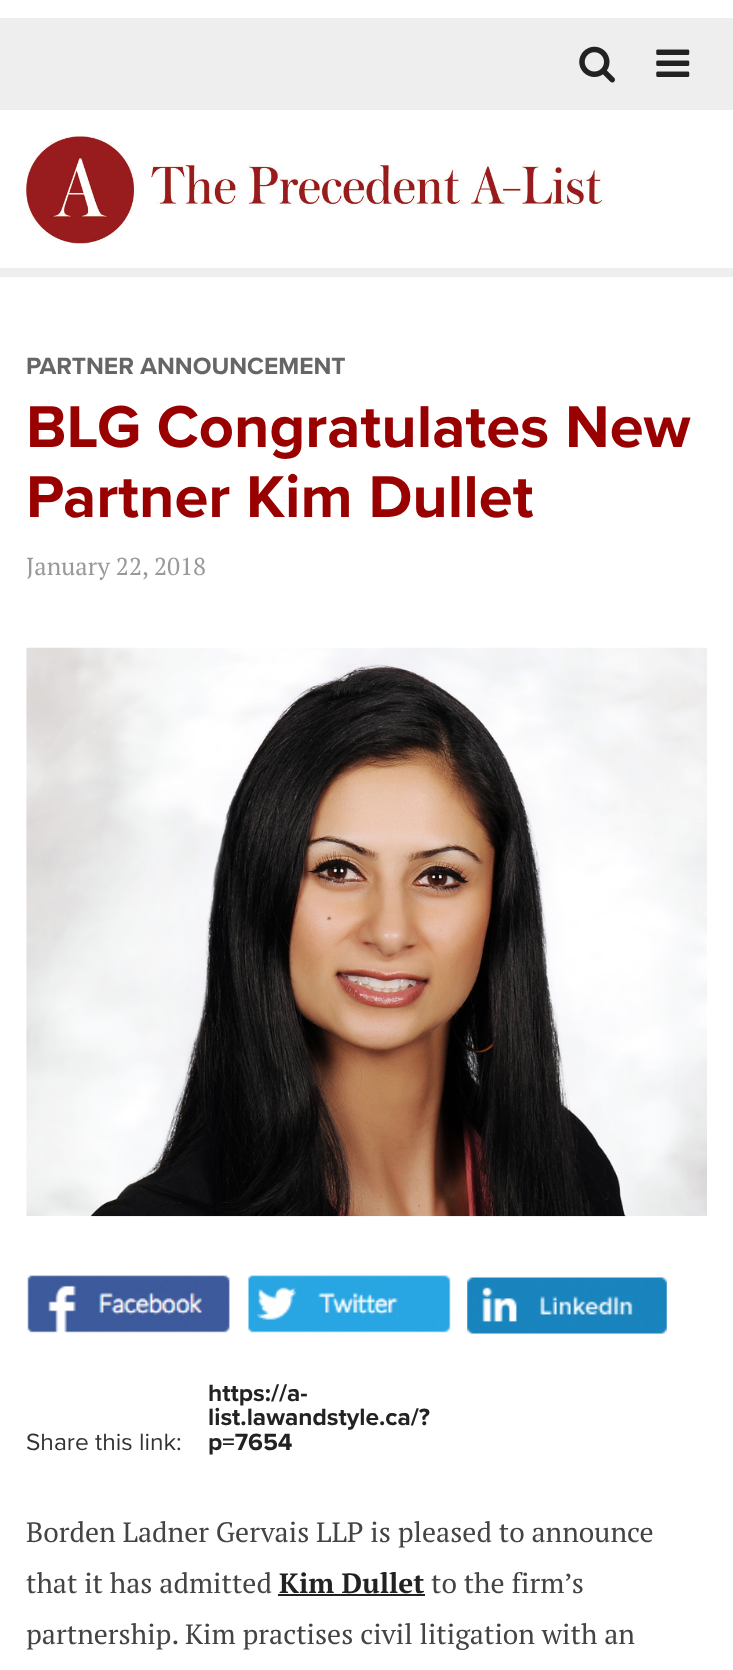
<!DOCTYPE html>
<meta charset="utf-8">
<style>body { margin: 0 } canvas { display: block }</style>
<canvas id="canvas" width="733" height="1670"></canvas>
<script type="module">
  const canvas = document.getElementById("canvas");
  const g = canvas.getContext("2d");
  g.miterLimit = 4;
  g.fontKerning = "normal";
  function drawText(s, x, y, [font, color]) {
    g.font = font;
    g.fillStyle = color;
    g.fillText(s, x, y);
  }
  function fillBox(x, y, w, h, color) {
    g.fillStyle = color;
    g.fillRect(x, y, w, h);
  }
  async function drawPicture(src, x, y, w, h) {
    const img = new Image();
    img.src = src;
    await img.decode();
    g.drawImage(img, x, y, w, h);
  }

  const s1 = ["bold 24.5px Proxima Nova", "#666666"];
  const s2 = ["bold 61.25px Proxima Nova", "#990000"];
  const s3 = ["24.5px PT Serif", "#999999"];
  const s4 = ["24.5px Proxima Nova", "#333333"];
  const s5 = ["bold 24.5px Proxima Nova", "#222222"];
  const s6 = ["28px PT Serif", "#444444"];
  const s7 = ["bold 28px PT Serif", "#222222"];

  fillBox(0, 0, 733, 1670, "#FFFFFF");
  fillBox(0, 18, 733, 92, "#EEEEEE");
  await drawPicture("pic1.png", 579, 46, 36, 37);
  await drawPicture("pic2.png", 656, 49, 34, 28);
  fillBox(0, 268, 733, 9, "#EEEEEE");
  await drawPicture("pic3.png", 26, 136, 580, 108);
  drawText("PARTNER ANNOUNCEMENT", 26, 374, s1);
  drawText("BLG Congratulates New", 26, 447, s2);
  drawText("Partner Kim Dullet", 26, 517, s2);
  drawText("January 22, 2018", 26, 575, s3);
  await drawPicture("pic4.png", 26, 647, 681, 570);
  await drawPicture("pic5.png", 27, 1275, 203, 58);
  await drawPicture("pic6.png", 248, 1275, 203, 58);
  await drawPicture("pic7.png", 467, 1277, 200, 57);
  drawText("Share this link:", 26, 1450, s4);
  drawText("https://a-", 208, 1401, s5);
  drawText("list.lawandstyle.ca/?", 208, 1425, s5);
  drawText("p=7654", 208, 1450, s5);
  drawText("Borden Ladner Gervais LLP is pleased to announce", 26, 1542, s6);
  drawText("that it has admitted", 26, 1593, s6);
  drawText("Kim Dullet", 279, 1593, s7);
  fillBox(278, 1594, 147, 2, "#222222");
  drawText("to the firm’s", 431, 1593, s6);
  drawText("partnership. Kim practises civil litigation with an", 26, 1644, s6);
</script>
